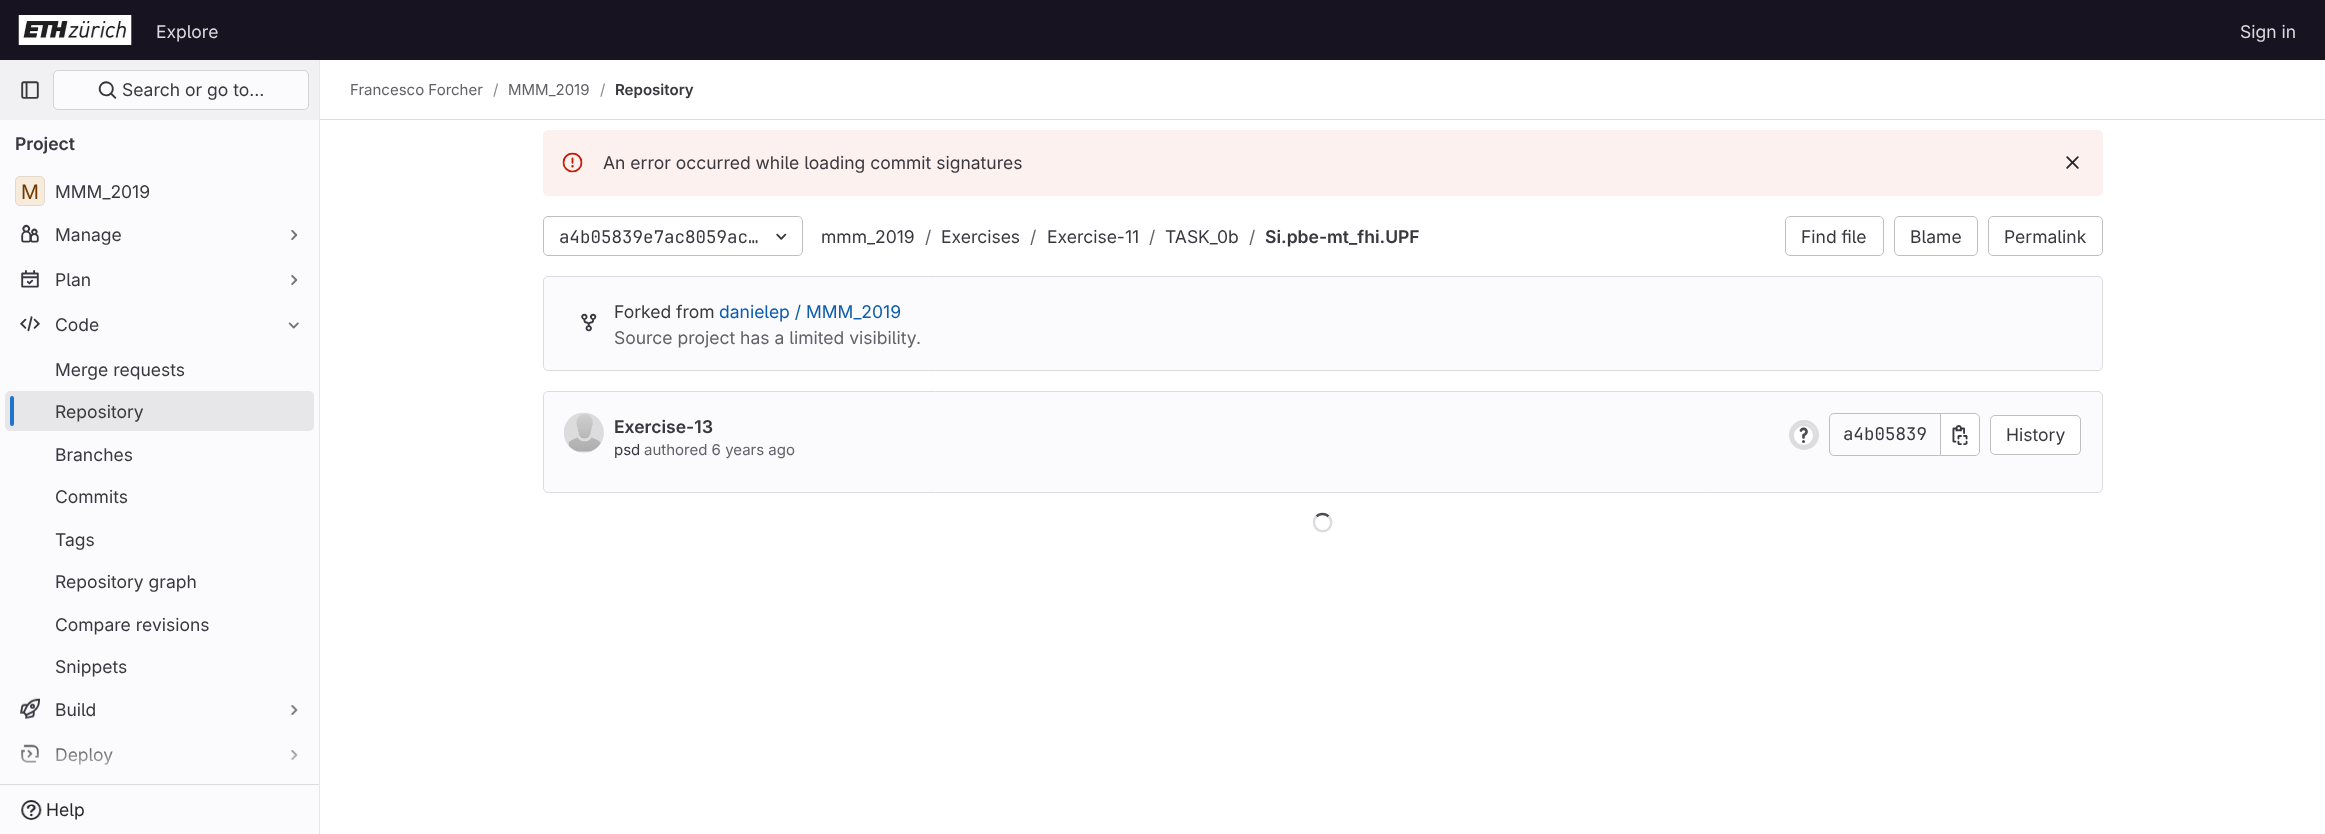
<!DOCTYPE html>
<meta charset="utf-8">
<style>body { margin: 0 } canvas { display: block }</style>
<canvas id="canvas" width="2325" height="834"></canvas>
<script type="module">
  const canvas = document.getElementById("canvas");
  const g = canvas.getContext("2d");
  g.miterLimit = 4;
  g.fontKerning = "normal";
  function drawText(s, x, y, [font, color]) {
    g.font = font;
    g.fillStyle = color;
    g.fillText(s, x, y);
  }
  function fillBox(x, y, w, h, color) {
    g.fillStyle = color;
    g.fillRect(x, y, w, h);
  }
  function fillRounded(x, y, w, h, r, color) {
    g.fillStyle = color;
    g.beginPath();
    g.roundRect(x, y, w, h, r);
    g.fill();
  }
  async function drawPicture(src, x, y, w, h) {
    const img = new Image();
    img.src = src;
    await img.decode();
    g.drawImage(img, x, y, w, h);
  }
  let gradient;

  const s1 = ["17.5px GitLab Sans", "#DCDCDE"];
  const s2 = ["17.5px GitLab Sans", "#3A383F"];
  const s3 = ["600 17.5px GitLab Sans", "#3A383F"];
  const s4 = ["20px 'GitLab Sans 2'", "#703800"];
  const s5 = ["17.5px GitLab Sans", "#28272D"];
  const s6 = ["15px GitLab Sans", "#626168"];
  const s7 = ["15px GitLab Sans", "#89888D"];
  const s8 = ["600 15px GitLab Sans", "#3A383F"];
  const s9 = ["17.5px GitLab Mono", "#3A383F"];
  const s10 = ["17.5px GitLab Sans", "#626168"];
  const s11 = ["17.5px GitLab Sans", "#0B5CAD"];
  const s12 = ["15px GitLab Sans", "#3A383F"];

  fillBox(0, 0, 2325, 834, "#FFFFFF");
  fillBox(0, 0, 2325, 60, "#171321");
  await drawPicture("pic1.png", 18, 15, 114, 30);
  drawText("Explore", 156, 38, s1);
  drawText("Sign in", 2240, 38, s1);
  fillBox(0, 120, 319, 714, "#FBFAFD");
  fillBox(319, 60, 1, 774, "#E7E6E9");
  fillBox(0, 60, 319, 60, "#F1F0F3");
  await drawPicture("pic2.png", 21, 81, 18, 18);
  fillRounded(53, 70, 256, 40, 5, "#FBFAFD");
  g.beginPath();
  g.roundRect(53.5, 70.5, 255, 39, 4.5);
  g.strokeStyle = "rgba(5, 5, 6, 0.16)";
  g.stroke();
  await drawPicture("pic3.png", 98, 81, 19, 18);
  drawText("Search or go to…", 122, 96, s2);
  drawText("Project", 15, 150, s3);
  fillBox(0, 784, 319, 1, "#DCDCDE");
  fillRounded(15, 176, 30, 30, 5, "#F7ECDC");
  g.beginPath();
  g.roundRect(15.5, 176.5, 29, 29, 4.5);
  g.strokeStyle = "rgba(5, 5, 6, 0.08)";
  g.stroke();
  drawText("M", 21, 199, s4);
  drawText("MMM_2019", 55, 198, s2);
  await drawPicture("pic4.png", 21, 224, 18, 19);
  drawText("Manage", 55, 241, s2);
  await drawPicture("pic5.png", 291, 230, 7, 10);
  await drawPicture("pic6.png", 21, 270, 18, 18);
  drawText("Plan", 55, 286, s2);
  await drawPicture("pic5.png", 291, 275, 7, 10);
  await drawPicture("pic7.png", 20, 316, 20, 16);
  drawText("Code", 55, 331, s2);
  await drawPicture("pic8.png", 288, 322, 11, 7);
  drawText("Merge requests", 55, 376, s2);
  fillRounded(5, 391, 309, 40, 5, "#E7E6E9");
  fillRounded(10, 396, 4, 30, 2, "#1F75CB");
  drawText("Repository", 55, 418, s2);
  drawText("Branches", 55, 461, s2);
  drawText("Commits", 55, 503, s2);
  drawText("Tags", 55, 546, s2);
  drawText("Repository graph", 55, 588, s2);
  drawText("Compare revisions", 55, 631, s2);
  drawText("Snippets", 55, 673, s2);
  await drawPicture("pic9.png", 20, 698, 20, 21);
  drawText("Build", 55, 716, s2);
  await drawPicture("pic10.png", 290, 705, 8, 10);
  await drawPicture("pic11.png", 21, 744, 18, 19);
  drawText("Deploy", 55, 761, s2);
  await drawPicture("pic10.png", 290, 750, 8, 10);
  gradient = g.createLinearGradient(159, 739, 159, 784);
  gradient.addColorStop(0, "rgba(251, 250, 253, 0)");
  gradient.addColorStop(1, "#FBFAFD");
  g.fillStyle = gradient;
  g.fillRect(21, 744, 277, 21);
  await drawPicture("pic12.png", 21, 800, 21, 20);
  drawText("Help", 46, 816, s5);
  fillBox(320, 119, 2005, 1, "#DCDCDE");
  drawText("Francesco Forcher", 350, 95, s6);
  drawText("/", 493, 95, s7);
  drawText("MMM_2019", 508, 95, s6);
  drawText("/", 600, 95, s7);
  drawText("Repository", 615, 95, s8);
  fillRounded(543, 130, 1560, 66, 5, "#FCF1EF");
  await drawPicture("pic13.png", 562, 152, 21, 21);
  drawText("An error occurred while loading commit signatures", 603, 169, s2);
  await drawPicture("pic14.png", 2066, 156, 13, 13);
  g.beginPath();
  g.roundRect(543.5, 216.5, 259, 39, 4.5);
  g.strokeStyle = "#BFBFC3";
  g.stroke();
  drawText("a4b05839e7ac8059ac…", 559, 243, s9);
  await drawPicture("pic15.png", 776, 233, 11, 7);
  drawText("mmm_2019", 821, 243, s2);
  drawText("/", 925, 243, s10);
  drawText("Exercises", 941, 243, s2);
  drawText("/", 1030, 243, s10);
  drawText("Exercise-11", 1047, 243, s2);
  drawText("/", 1149, 243, s10);
  drawText("TASK_0b", 1165, 243, s2);
  drawText("/", 1249, 243, s10);
  drawText("Si.pbe-mt_fhi.UPF", 1265, 243, s3);
  g.beginPath();
  g.roundRect(1785.5, 216.5, 98, 39, 4.5);
  g.stroke();
  drawText("Find file", 1801, 243, s2);
  g.beginPath();
  g.roundRect(1894.5, 216.5, 83, 39, 4.5);
  g.stroke();
  drawText("Blame", 1910, 243, s2);
  g.beginPath();
  g.roundRect(1988.5, 216.5, 114, 39, 4.5);
  g.stroke();
  drawText("Permalink", 2004, 243, s2);
  g.fillStyle = "#FBFAFD";
  g.beginPath();
  g.roundRect(543.5, 276.5, 1559, 94, 4.5);
  g.fill();
  g.strokeStyle = "#DCDCDE";
  g.stroke();
  await drawPicture("pic16.png", 581, 313, 16, 19);
  drawText("Forked from", 614, 318, s2);
  drawText("danielep / MMM_2019", 719, 318, s11);
  drawText("Source project has a limited visibility.", 614, 344, s10);
  g.fillStyle = "#FBFAFD";
  g.beginPath();
  g.roundRect(543.5, 391.5, 1559, 101, 4.5);
  g.fill();
  g.stroke();
  g.beginPath();
  g.arc(584, 433, 19.5, 0, Math.PI * 2);
  g.strokeStyle = "#E7E6E9";
  g.stroke();
  await drawPicture("pic17.png", 564, 412, 40, 40);
  drawText("Exercise-13", 614, 433, s3);
  drawText("psd", 614, 455, s12);
  drawText("authored 6 years ago", 644, 455, s6);
  g.beginPath();
  g.arc(1804, 435, 13.5, 0, Math.PI * 2);
  g.strokeStyle = "#DCDCDE";
  g.lineWidth = 3;
  g.stroke();
  g.fillStyle = "#FFFFFF";
  g.beginPath();
  g.arc(1803.5, 435.5, 11, 0, Math.PI * 2);
  g.fill();
  g.stroke();
  await drawPicture("pic18.png", 1799, 427, 9, 16);
  g.beginPath();
  g.roundRect(1829.5, 413.5, 111, 42, [4.5, 0, 0, 4.5]);
  g.strokeStyle = "#BFBFC3";
  g.lineWidth = 1;
  g.stroke();
  drawText("a4b05839", 1843, 440, s9);
  g.fillStyle = "#FFFFFF";
  g.beginPath();
  g.roundRect(1940.5, 413.5, 39, 42, [0, 4.5, 4.5, 0]);
  g.fill();
  g.stroke();
  await drawPicture("pic19.png", 1952, 425, 16, 20);
  g.beginPath();
  g.roundRect(1990.5, 415.5, 90, 39, 4.5);
  g.fill();
  g.stroke();
  drawText("History", 2006, 441, s2);
  g.beginPath();
  g.moveTo(1316.5, 516.5);
  g.bezierCurveTo(1319.5, 513, 1325.5, 513, 1328.5, 516.5);
  g.strokeStyle = "#4C4B51";
  g.lineWidth = 2.5;
  g.stroke();
  g.beginPath();
  g.moveTo(1328.5, 516.5);
  g.bezierCurveTo(1330.5, 518.5, 1331.5, 521.5, 1331, 524);
  g.bezierCurveTo(1329, 534.5, 1314, 533, 1314, 522.5);
  g.bezierCurveTo(1314, 520, 1314.5, 518, 1316.5, 516.5);
  g.strokeStyle = "#DCDCDE";
  g.stroke();
</script>
